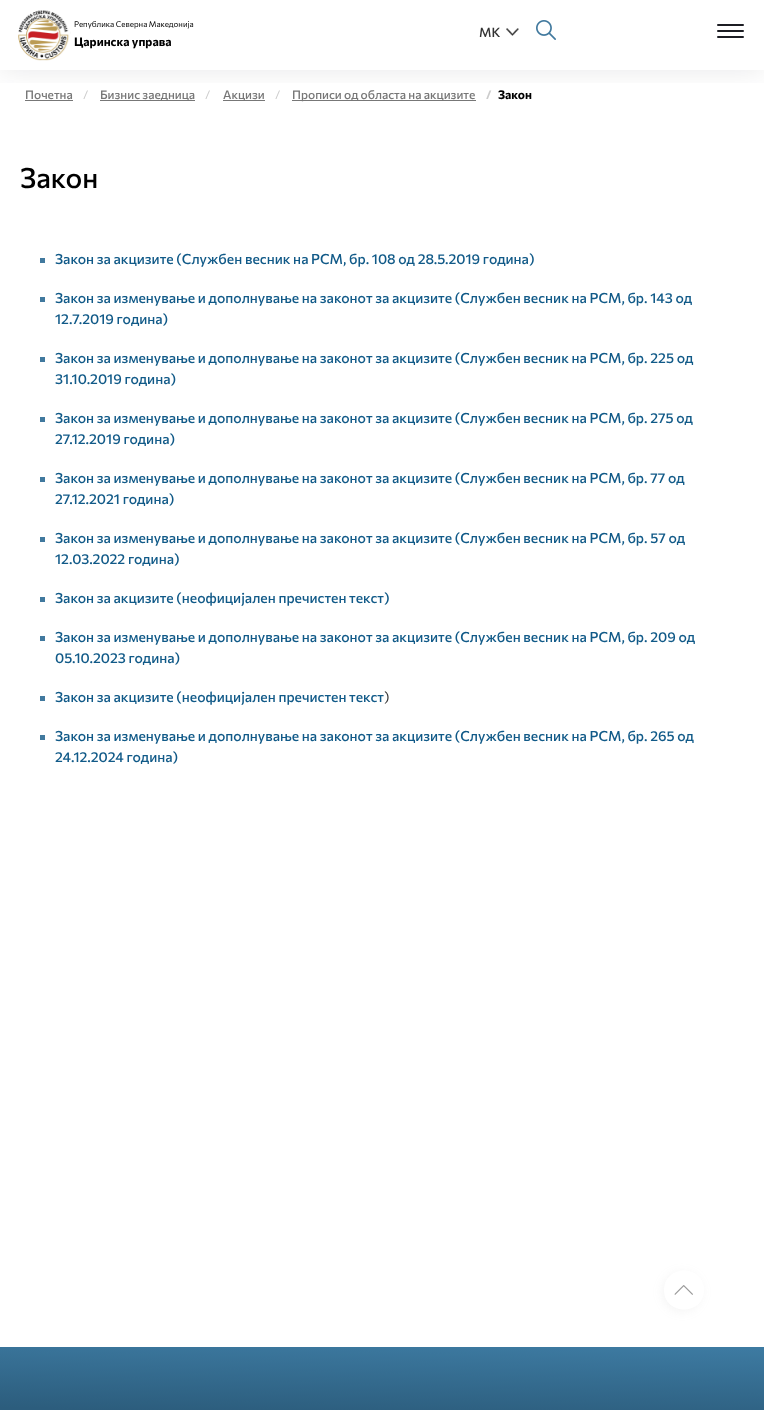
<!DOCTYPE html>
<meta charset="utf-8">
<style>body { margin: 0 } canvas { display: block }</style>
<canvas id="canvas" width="764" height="1410"></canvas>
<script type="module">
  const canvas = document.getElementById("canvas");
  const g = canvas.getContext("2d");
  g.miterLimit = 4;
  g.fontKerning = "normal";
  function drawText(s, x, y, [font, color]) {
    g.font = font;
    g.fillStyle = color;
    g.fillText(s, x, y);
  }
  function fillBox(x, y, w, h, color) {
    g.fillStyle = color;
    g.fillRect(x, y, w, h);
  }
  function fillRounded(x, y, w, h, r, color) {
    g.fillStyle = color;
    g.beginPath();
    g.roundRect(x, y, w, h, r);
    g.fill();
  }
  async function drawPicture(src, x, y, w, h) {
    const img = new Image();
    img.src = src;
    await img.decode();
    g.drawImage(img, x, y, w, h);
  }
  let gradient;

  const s1 = ["8px Commissioner", "#000000"];
  const s2 = ["bold 12px Commissioner", "#000000"];
  const s3 = ["500 13px Commissioner", "#333333"];
  const s4 = ["500 12px Commissioner", "#777777"];
  const s5 = ["12px Commissioner", "#CCCCCC"];
  const s6 = ["bold 12px Commissioner", "#CCCCCC"];
  const s7 = ["500 28px Commissioner", "#000000"];
  const s8 = ["500 14px Commissioner", "#115A88"];
  const s9 = ["14px Commissioner", "#333333"];

  fillBox(0, 0, 764, 1410, "#FFFFFF");
  fillBox(25, 100, 48, 1, "#777777");
  fillBox(100, 100, 95, 1, "#777777");
  fillBox(223, 100, 42, 1, "#777777");
  fillBox(292, 100, 184, 1, "#777777");
  g.save();
  g.beginPath();
  g.rect(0, 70, 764, 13);
  g.clip();
  g.fillStyle = "rgba(28, 29, 35, 0.1)";
  g.filter = "blur(15px)";
  g.beginPath();
  g.rect(0, 0, 764, 70);
  g.fill();
  g.filter = "none";
  g.restore();
  await drawPicture("pic1.png", 18, 10, 53, 51);
  drawText("Република Северна Македонија", 74, 27, s1);
  drawText("Царинска управа", 74, 46, s2);
  drawText("MK", 479, 37, s3);
  await drawPicture("pic2.png", 506, 28, 13, 8);
  await drawPicture("pic3.png", 536, 20, 20, 20);
  fillRounded(717, 24, 27, 2, 1, "#1C1D23");
  fillRounded(717, 30, 27, 2, 1, "#1C1D23");
  fillRounded(717, 36, 27, 2, 1, "#1C1D23");
  drawText("Почетна", 25, 99, s4);
  drawText("/", 83, 99, s5);
  drawText("Бизнис заедница", 100, 99, s4);
  drawText("/", 205, 99, s5);
  drawText("Акцизи", 223, 99, s4);
  drawText("/", 275, 99, s5);
  drawText("Прописи од областа на акцизите", 292, 99, s4);
  drawText("/", 486, 99, s6);
  drawText("Закон", 498, 99, s2);
  drawText("Закон", 20, 188, s7);
  fillBox(40, 258, 5, 5, "#41799E");
  drawText("Закон за акцизите (Службен весник на РСМ, бр. 108 од 28.5.2019 година)", 55, 264, s8);
  fillBox(40, 297, 5, 5, "#41799E");
  drawText("Закон за изменување и дополнување на законот за акцизите (Службен весник на РСМ, бр. 143 од", 55, 303, s8);
  drawText("12.7.2019 година)", 55, 324, s8);
  fillBox(40, 357, 5, 5, "#41799E");
  drawText("Закон за изменување и дополнување на законот за акцизите (Службен весник на РСМ, бр. 225 од", 55, 363, s8);
  drawText("31.10.2019 година)", 55, 384, s8);
  fillBox(40, 417, 5, 5, "#41799E");
  drawText("Закон за изменување и дополнување на законот за акцизите (Службен весник на РСМ, бр. 275 од", 55, 423, s8);
  drawText("27.12.2019 година)", 55, 444, s8);
  fillBox(40, 477, 5, 5, "#41799E");
  drawText("Закон за изменување и дополнување на законот за акцизите (Службен весник на РСМ, бр. 77 од", 55, 483, s8);
  drawText("27.12.2021 година)", 55, 504, s8);
  fillBox(40, 537, 5, 5, "#41799E");
  drawText("Закон за изменување и дополнување на законот за акцизите (Службен весник на РСМ, бр. 57 од", 55, 543, s8);
  drawText("12.03.2022 година)", 55, 564, s8);
  fillBox(40, 597, 5, 5, "#41799E");
  drawText("Закон за акцизите (неофицијален пречистен текст)", 55, 603, s8);
  fillBox(40, 636, 5, 5, "#41799E");
  drawText("Закон за изменување и дополнување на законот за акцизите (Службен весник на РСМ, бр. 209 од", 55, 642, s8);
  drawText("05.10.2023 година)", 55, 663, s8);
  fillBox(40, 696, 5, 5, "#41799E");
  drawText("Закон за акцизите (неофицијален пречистен текст", 55, 702, s8);
  drawText(")", 384, 702, s9);
  fillBox(40, 735, 5, 5, "#41799E");
  drawText("Закон за изменување и дополнување на законот за акцизите (Службен весник на РСМ, бр. 265 од", 55, 741, s8);
  drawText("24.12.2024 година)", 55, 762, s8);
  gradient = g.createLinearGradient(383, 1340, 381, 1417);
  gradient.addColorStop(0, "#3D7AA1");
  gradient.addColorStop(1, "#2C5D7D");
  g.fillStyle = gradient;
  g.fillRect(0, 1347, 764, 63);
  g.fillStyle = "rgba(153, 153, 153, 0.1)";
  g.filter = "blur(5px)";
  g.beginPath();
  g.roundRect(662, 1272, 40, 40, 20);
  g.fill();
  g.filter = "none";
  g.fillStyle = "#FFFFFF";
  g.beginPath();
  g.moveTo(664, 1290);
  g.bezierCurveTo(664, 1264, 704, 1264, 704, 1290);
  g.bezierCurveTo(704, 1316, 664, 1316, 664, 1290);
  g.closePath();
  g.fill();
  await drawPicture("pic4.png", 674, 1285, 19, 10);
</script>
